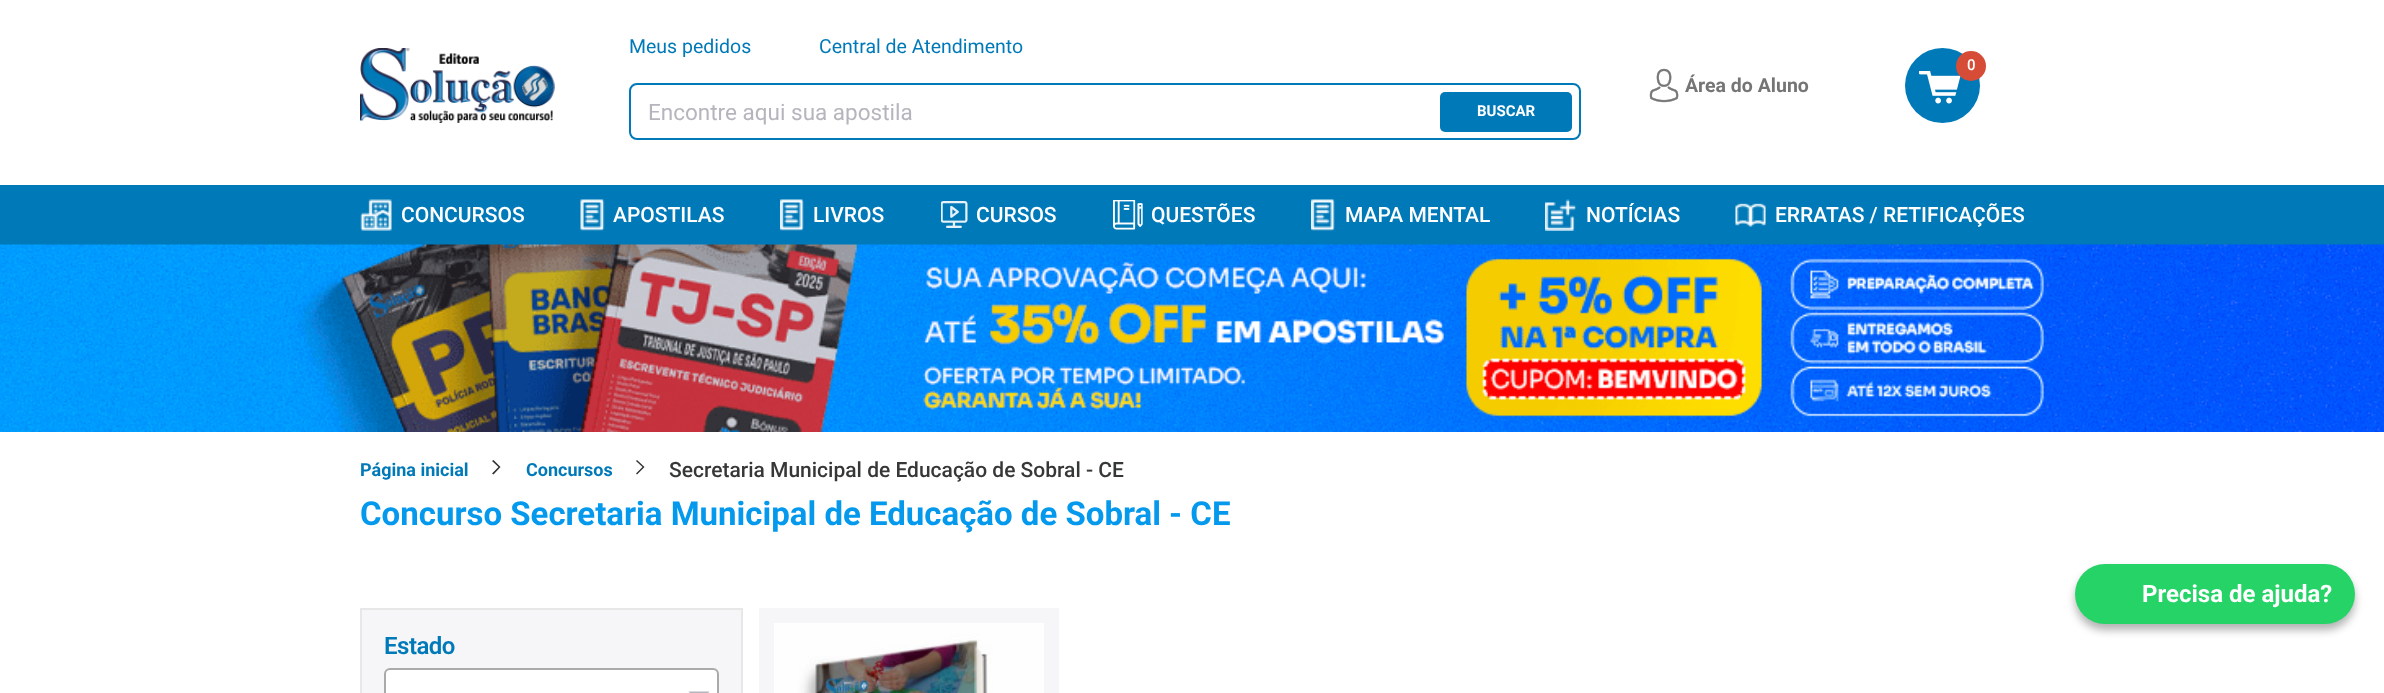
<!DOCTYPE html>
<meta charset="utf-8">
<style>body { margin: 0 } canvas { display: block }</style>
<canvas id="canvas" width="2384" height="693"></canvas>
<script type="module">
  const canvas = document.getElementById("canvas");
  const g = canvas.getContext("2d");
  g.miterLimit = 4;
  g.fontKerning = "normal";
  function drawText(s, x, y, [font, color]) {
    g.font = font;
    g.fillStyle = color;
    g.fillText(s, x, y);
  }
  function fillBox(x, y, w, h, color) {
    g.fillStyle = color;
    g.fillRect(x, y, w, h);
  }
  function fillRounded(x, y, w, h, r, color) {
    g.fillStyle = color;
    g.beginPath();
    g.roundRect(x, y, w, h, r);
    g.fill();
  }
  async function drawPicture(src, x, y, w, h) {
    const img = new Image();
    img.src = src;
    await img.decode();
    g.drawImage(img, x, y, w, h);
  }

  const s1 = ["19.5px Roboto", "#0079B8"];
  const s2 = ["22.5px Roboto", "#B5B5BD"];
  const s3 = ["bold 15px Roboto", "#FFFFFF"];
  const s4 = ["500 15px Roboto", "#FFFFFF"];
  const s5 = ["bold 19.5px Roboto", "#757575"];
  const s6 = ["500 21px Roboto", "#FFFFFF"];
  const s7 = ["bold 18px Roboto", "#0079B8"];
  const s8 = ["500 21px Roboto", "#363837"];
  const s9 = ["bold 33px Roboto", "#0499EC"];
  const s10 = ["600 24px Roboto", "#0079B8"];
  const s11 = ["bold 24px Roboto", "#FFFFFF"];

  fillBox(0, 0, 2384, 693, "#FFFFFF");
  await drawPicture("pic1.png", 360, 48, 195, 75);
  drawText("Meus pedidos", 629, 53, s1);
  drawText("Central de Atendimento", 819, 53, s1);
  g.beginPath();
  g.roundRect(630, 84, 950, 55, 7);
  g.strokeStyle = "#0079B8";
  g.lineWidth = 2;
  g.stroke();
  drawText("Encontre aqui sua apostila", 648, 120, s2);
  fillRounded(1440, 92, 132, 40, 5, "#0079B8");
  drawText("BUSCAR", 1477, 116, s3);
  g.fillStyle = "#0079B8";
  g.beginPath();
  g.arc(1942.5, 85.5, 37.5, 0, Math.PI * 2);
  g.fill();
  await drawPicture("pic2.png", 1919, 71, 42, 33);
  g.fillStyle = "#D64C36";
  g.beginPath();
  g.arc(1971, 66, 15, 0, Math.PI * 2);
  g.fill();
  g.letterSpacing = "-1px";
  drawText("0", 1967, 70, s4);
  await drawPicture("pic3.png", 1649, 68, 30, 35);
  g.letterSpacing = "0px";
  drawText("Área do Aluno", 1685, 92, s5);
  fillBox(0, 185, 2384, 60, "#0079B8");
  await drawPicture("pic4.png", 360, 199, 32, 32);
  drawText("CONCURSOS", 401, 222, s6);
  await drawPicture("pic5.png", 580, 199, 25, 32);
  drawText("APOSTILAS", 613, 222, s6);
  await drawPicture("pic6.png", 780, 199, 24, 32);
  drawText("LIVROS", 813, 222, s6);
  await drawPicture("pic7.png", 941, 201, 27, 27);
  drawText("CURSOS", 976, 222, s6);
  await drawPicture("pic8.png", 1113, 200, 30, 30);
  drawText("QUESTÕES", 1151, 222, s6);
  await drawPicture("pic6.png", 1311, 199, 24, 32);
  drawText("MAPA MENTAL", 1345, 222, s6);
  await drawPicture("pic9.png", 1545, 199, 32, 32);
  drawText("NOTÍCIAS", 1586, 222, s6);
  await drawPicture("pic10.png", 1735, 203, 31, 24);
  drawText("ERRATAS / RETIFICAÇÕES", 1775, 222, s6);
  await drawPicture("pic11.png", 0, 244, 2384, 188);
  drawText("Página inicial", 360, 476, s7);
  g.fillStyle = "#313231";
  g.beginPath();
  g.moveTo(493.5, 460);
  g.lineTo(500.5, 467);
  g.lineTo(498.5, 467);
  g.lineTo(492, 461);
  g.closePath();
  g.moveTo(500.5, 467);
  g.lineTo(493.5, 474.5);
  g.lineTo(492, 473.5);
  g.lineTo(498.5, 467);
  g.closePath();
  g.fill();
  drawText("Concursos", 526, 476, s7);
  g.fillStyle = "#313231";
  g.beginPath();
  g.moveTo(637, 460);
  g.lineTo(644.5, 467);
  g.lineTo(642.5, 467);
  g.lineTo(636, 461);
  g.closePath();
  g.moveTo(644.5, 467);
  g.lineTo(637, 474.5);
  g.lineTo(636, 473.5);
  g.lineTo(642.5, 467);
  g.closePath();
  g.fill();
  drawText("Secretaria Municipal de Educação de Sobral - CE", 669, 477, s8);
  drawText("Concurso Secretaria Municipal de Educação de Sobral - CE", 360, 525, s9);
  g.fillStyle = "#F6F6F9";
  g.beginPath();
  g.rect(361, 609, 381, 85);
  g.fill();
  g.strokeStyle = "#E7E7E7";
  g.stroke();
  g.letterSpacing = "-0.5px";
  drawText("Estado", 384, 654, s10);
  g.fillStyle = "#FFFFFF";
  g.beginPath();
  g.roundRect(385, 669, 333, 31, 5);
  g.fill();
  g.strokeStyle = "#AAAAAA";
  g.stroke();
  g.fillStyle = "#B5B5BD";
  g.beginPath();
  g.moveTo(688.5, 691.5);
  g.lineTo(709.5, 691.5);
  g.lineTo(699, 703.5);
  g.closePath();
  g.fill();
  fillBox(759, 608, 300, 85, "#F6F6F9");
  await drawPicture("pic12.png", 774, 623, 270, 70);
  g.fillStyle = "rgba(0, 0, 0, 0.3)";
  g.filter = "blur(4.5px)";
  g.beginPath();
  g.roundRect(2075, 570, 280, 60, 30);
  g.fill();
  g.filter = "none";
  fillRounded(2075, 564, 280, 60, 30, "#25D366");
  g.letterSpacing = "0px";
  drawText("Precisa de ajuda?", 2142, 602, s11);
</script>
